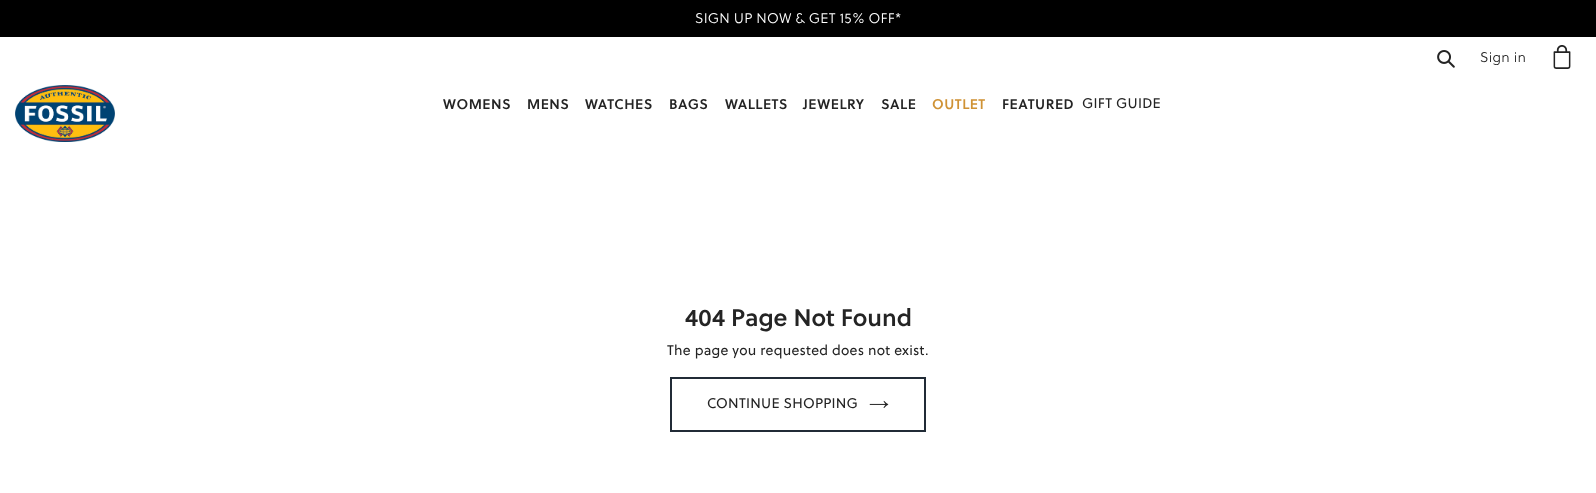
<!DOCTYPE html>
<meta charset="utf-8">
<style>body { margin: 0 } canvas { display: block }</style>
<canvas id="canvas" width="1596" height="493"></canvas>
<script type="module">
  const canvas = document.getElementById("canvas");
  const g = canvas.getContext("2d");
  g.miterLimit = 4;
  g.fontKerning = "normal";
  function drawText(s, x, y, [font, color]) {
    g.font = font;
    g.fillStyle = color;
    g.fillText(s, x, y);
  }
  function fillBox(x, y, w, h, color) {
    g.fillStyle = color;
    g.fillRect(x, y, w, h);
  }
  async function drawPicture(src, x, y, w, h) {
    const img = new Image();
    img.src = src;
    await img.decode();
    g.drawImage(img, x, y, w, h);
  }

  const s1 = ["300 14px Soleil", "#FFFFFF"];
  const s2 = ["300 14px Soleil", "#242424"];
  const s3 = ["600 14px Soleil", "#242424"];
  const s4 = ["600 14px Soleil", "#CF9235"];
  const s5 = ["14px Soleil", "#242424"];
  const s6 = ["600 24px Soleil", "#242424"];

  fillBox(0, 0, 1596, 493, "#FFFFFF");
  fillBox(0, 0, 1596, 37, "#000000");
  g.letterSpacing = "0.25px";
  drawText("SIGN UP NOW & GET 15% OFF*", 695, 23, s1);
  await drawPicture("pic1.png", 1437, 50, 18, 18);
  drawText("Sign in", 1480, 62, s2);
  await drawPicture("pic2.png", 1553, 45, 18, 24);
  await drawPicture("pic3.png", 15, 85, 100, 57);
  g.letterSpacing = "0.5px";
  drawText("WOMENS", 443, 109, s3);
  drawText("MENS", 527, 109, s3);
  drawText("WATCHES", 585, 109, s3);
  drawText("BAGS", 669, 109, s3);
  drawText("WALLETS", 725, 109, s3);
  drawText("JEWELRY", 803, 109, s3);
  drawText("SALE", 881, 109, s3);
  drawText("OUTLET", 932, 109, s4);
  drawText("FEATURED", 1002, 109, s3);
  g.letterSpacing = "0.25px";
  drawText("GIFT GUIDE", 1082, 108, s5);
  g.letterSpacing = "0px";
  drawText("404 Page Not Found", 685, 326, s6);
  g.letterSpacing = "0.25px";
  drawText("The page you requested does not exist.", 667, 355, s5);
  g.strokeStyle = "#212B36";
  g.lineWidth = 2;
  g.strokeRect(671, 378, 254, 53);
  drawText("CONTINUE SHOPPING", 707, 408, s5);
  await drawPicture("pic4.png", 869, 400, 20, 8);
</script>
